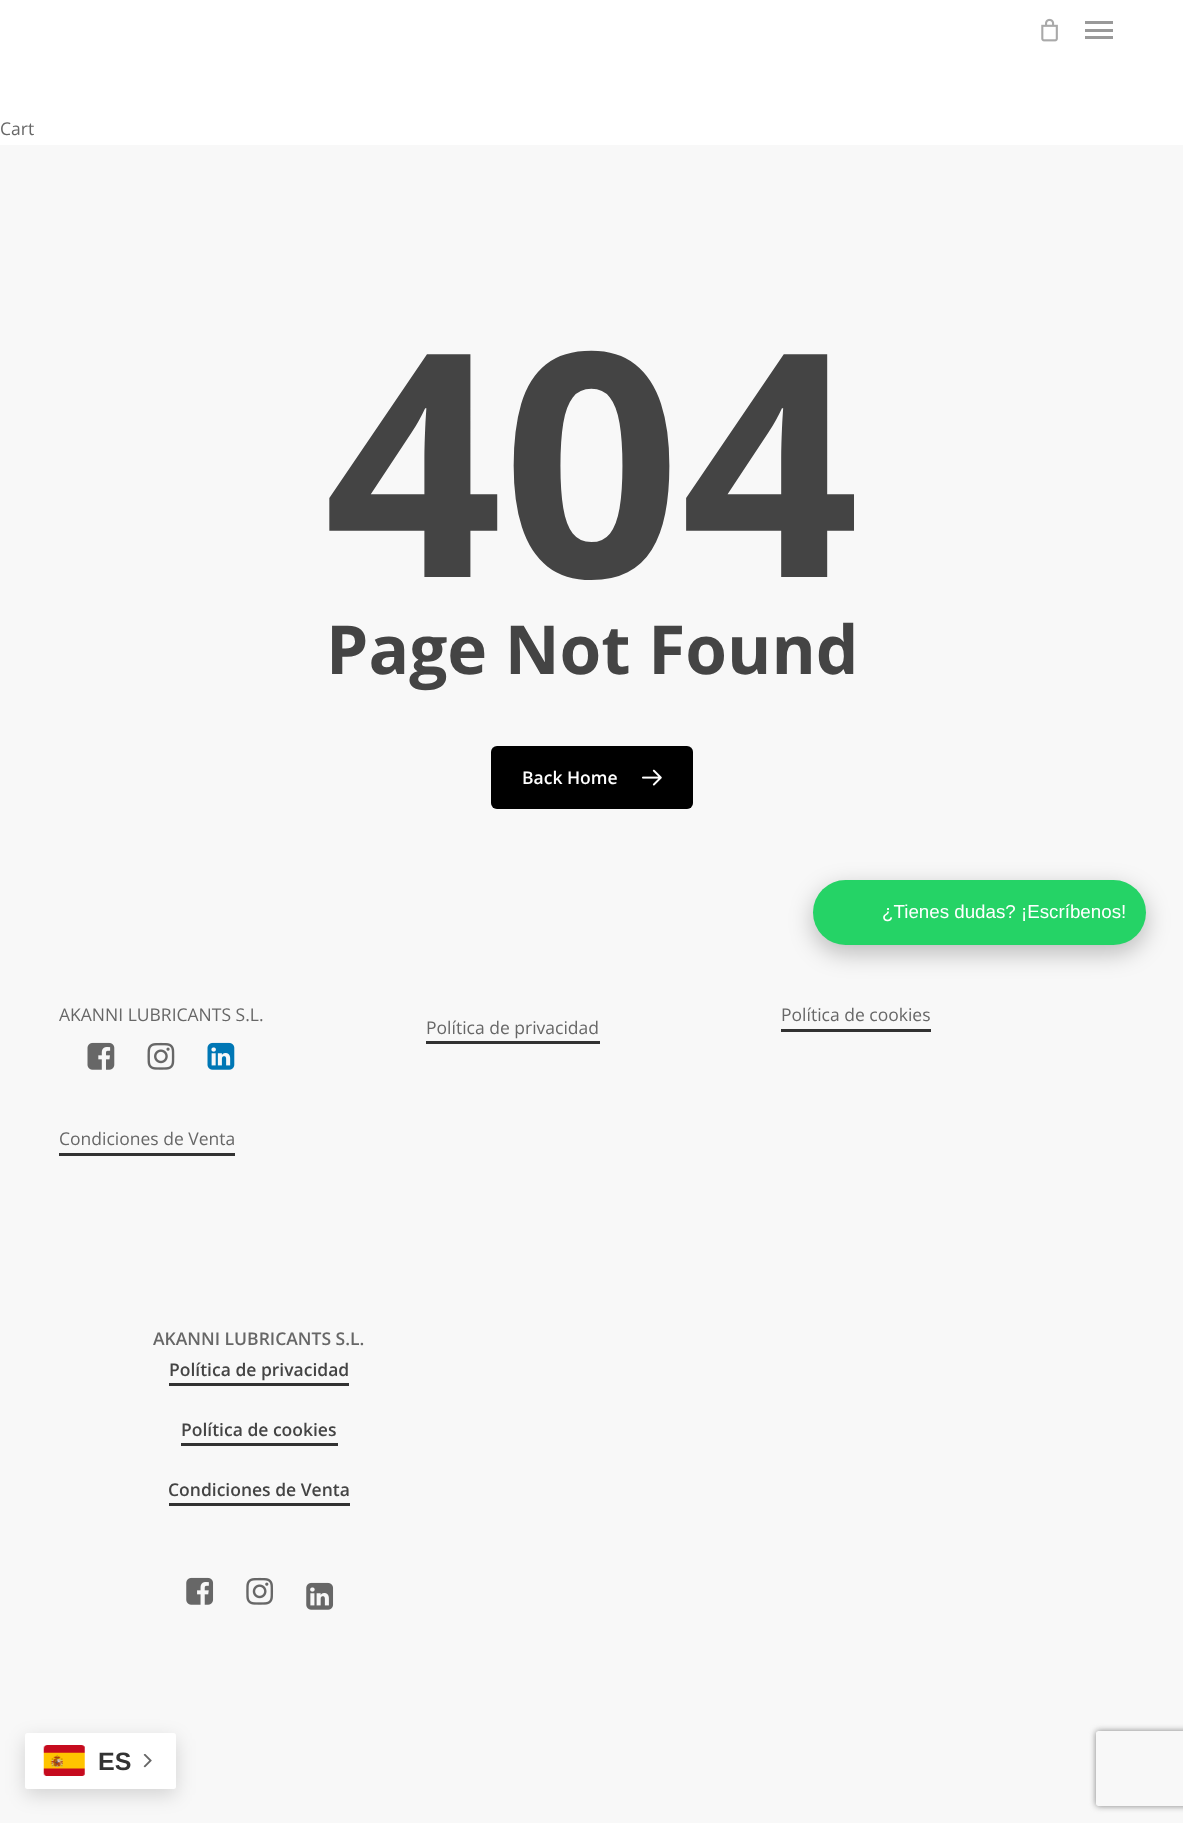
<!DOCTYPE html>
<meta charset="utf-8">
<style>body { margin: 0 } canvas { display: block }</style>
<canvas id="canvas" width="1183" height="1823"></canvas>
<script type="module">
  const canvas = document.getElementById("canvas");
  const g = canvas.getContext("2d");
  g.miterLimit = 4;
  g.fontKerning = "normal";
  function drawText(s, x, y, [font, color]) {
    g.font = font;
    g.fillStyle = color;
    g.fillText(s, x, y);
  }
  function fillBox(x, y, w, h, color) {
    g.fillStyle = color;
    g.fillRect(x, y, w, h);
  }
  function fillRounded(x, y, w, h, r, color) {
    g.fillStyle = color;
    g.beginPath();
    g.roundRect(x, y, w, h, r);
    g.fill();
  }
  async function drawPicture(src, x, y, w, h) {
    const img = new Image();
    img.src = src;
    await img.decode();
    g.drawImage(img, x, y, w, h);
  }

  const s1 = ["17.5px Open Sans", "#676767"];
  const s2 = ["bold 312px Open Sans", "#444444"];
  const s3 = ["bold 67.5px Open Sans", "#444444"];
  const s4 = ["600 17.5px Open Sans", "#FFFFFF"];
  const s5 = ["600 17.5px Open Sans", "#676767"];
  const s6 = ["600 17.5px Open Sans", "#444444"];
  const s7 = ["18.75px Liberation Sans", "#FFFFFF"];
  const s8 = ["bold 25px Liberation Sans", "#333333"];

  fillBox(0, 0, 1183, 1823, "#FFFFFF");
  await drawPicture("pic1.png", 1041, 18, 17, 24);
  fillBox(1085, 21, 28, 3, "#999999");
  fillBox(1085, 36, 28, 3, "#999999");
  fillBox(1085, 29, 28, 3, "#999999");
  drawText("Cart", 0, 135, s1);
  fillBox(0, 145, 1183, 1678, "#F8F8F8");
  drawText("404", 324, 577, s2);
  drawText("Page Not Found", 326, 674, s3);
  fillRounded(491, 746, 202, 63, 6, "#000000");
  g.fillStyle = "rgba(0, 0, 0, 0.1)";
  g.beginPath();
  g.moveTo(491, 799);
  g.lineTo(491, 803);
  g.bezierCurveTo(491, 806, 494, 809, 497, 809);
  g.lineTo(687, 809);
  g.bezierCurveTo(690, 809, 693, 806, 693, 803);
  g.lineTo(693, 752);
  g.bezierCurveTo(693, 751, 693, 750, 692, 749);
  g.lineTo(692, 791);
  g.bezierCurveTo(692, 795, 694, 805, 686, 805);
  g.lineTo(529, 805);
  g.bezierCurveTo(516, 805, 491, 809, 491, 799);
  g.closePath();
  g.fill();
  drawText("Back Home", 522, 784, s4);
  await drawPicture("pic2.png", 642, 769, 20, 17);
  drawText("AKANNI LUBRICANTS S.L.", 59, 1021, s1);
  await drawPicture("pic3.png", 87, 1042, 28, 28);
  await drawPicture("pic4.png", 147, 1042, 28, 28);
  await drawPicture("pic5.png", 207, 1042, 28, 28);
  drawText("Política de cookies", 781, 1021, s1);
  fillBox(781, 1029, 150, 3, "#323232");
  drawText("Política de privacidad", 426, 1034, s1);
  fillBox(426, 1041, 174, 3, "#323232");
  drawText("Condiciones de Venta", 59, 1145, s1);
  fillBox(59, 1153, 176, 3, "#323232");
  drawText("AKANNI LUBRICANTS S.L.", 153, 1345, s5);
  drawText("Política de privacidad", 169, 1376, s6);
  fillBox(169, 1383, 180, 3, "#323232");
  drawText("Política de cookies", 181, 1436, s6);
  fillBox(181, 1443, 157, 3, "#323232");
  drawText("Condiciones de Venta", 168, 1496, s6);
  fillBox(169, 1503, 181, 3, "#323232");
  await drawPicture("pic6.png", 186, 1577, 28, 28);
  await drawPicture("pic7.png", 246, 1577, 28, 28);
  await drawPicture("pic8.png", 306, 1582, 28, 28);
  g.fillStyle = "rgba(0, 0, 0, 0.25)";
  g.filter = "blur(12.5px)";
  g.beginPath();
  g.roundRect(813, 888, 333, 65, 32.5);
  g.fill();
  g.filter = "none";
  fillRounded(813, 880, 333, 65, 32.5, "#25D366");
  drawText("¿Tienes dudas? ¡Escríbenos!", 882, 918, s7);
  g.fillStyle = "rgba(0, 0, 0, 0.15)";
  g.filter = "blur(9.5px)";
  g.beginPath();
  g.roundRect(25, 1739, 151, 56, 2.5);
  g.fill();
  g.filter = "none";
  fillRounded(25, 1733, 151, 56, 2.5, "#FFFFFF");
  await drawPicture("pic9.png", 43, 1745, 42, 31);
  drawText("ES", 98, 1770, s8);
  await drawPicture("pic10.png", 143, 1754, 9, 14);
  g.save();
  g.beginPath();
  g.moveTo(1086, 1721);
  g.lineTo(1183, 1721);
  g.lineTo(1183, 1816);
  g.lineTo(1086, 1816);
  g.closePath();
  g.moveTo(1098.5, 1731);
  g.lineTo(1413.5, 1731);
  g.bezierCurveTo(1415, 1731, 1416, 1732, 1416, 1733.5);
  g.lineTo(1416, 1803.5);
  g.bezierCurveTo(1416, 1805, 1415, 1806, 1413.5, 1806);
  g.lineTo(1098.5, 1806);
  g.bezierCurveTo(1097, 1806, 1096, 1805, 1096, 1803.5);
  g.lineTo(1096, 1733.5);
  g.bezierCurveTo(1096, 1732, 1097, 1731, 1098.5, 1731);
  g.closePath();
  g.clip("evenodd");
  g.fillStyle = "#808080";
  g.filter = "blur(3px)";
  g.beginPath();
  g.roundRect(1096, 1731, 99, 75, 2.5);
  g.fill();
  g.filter = "none";
  g.restore();
</script>
